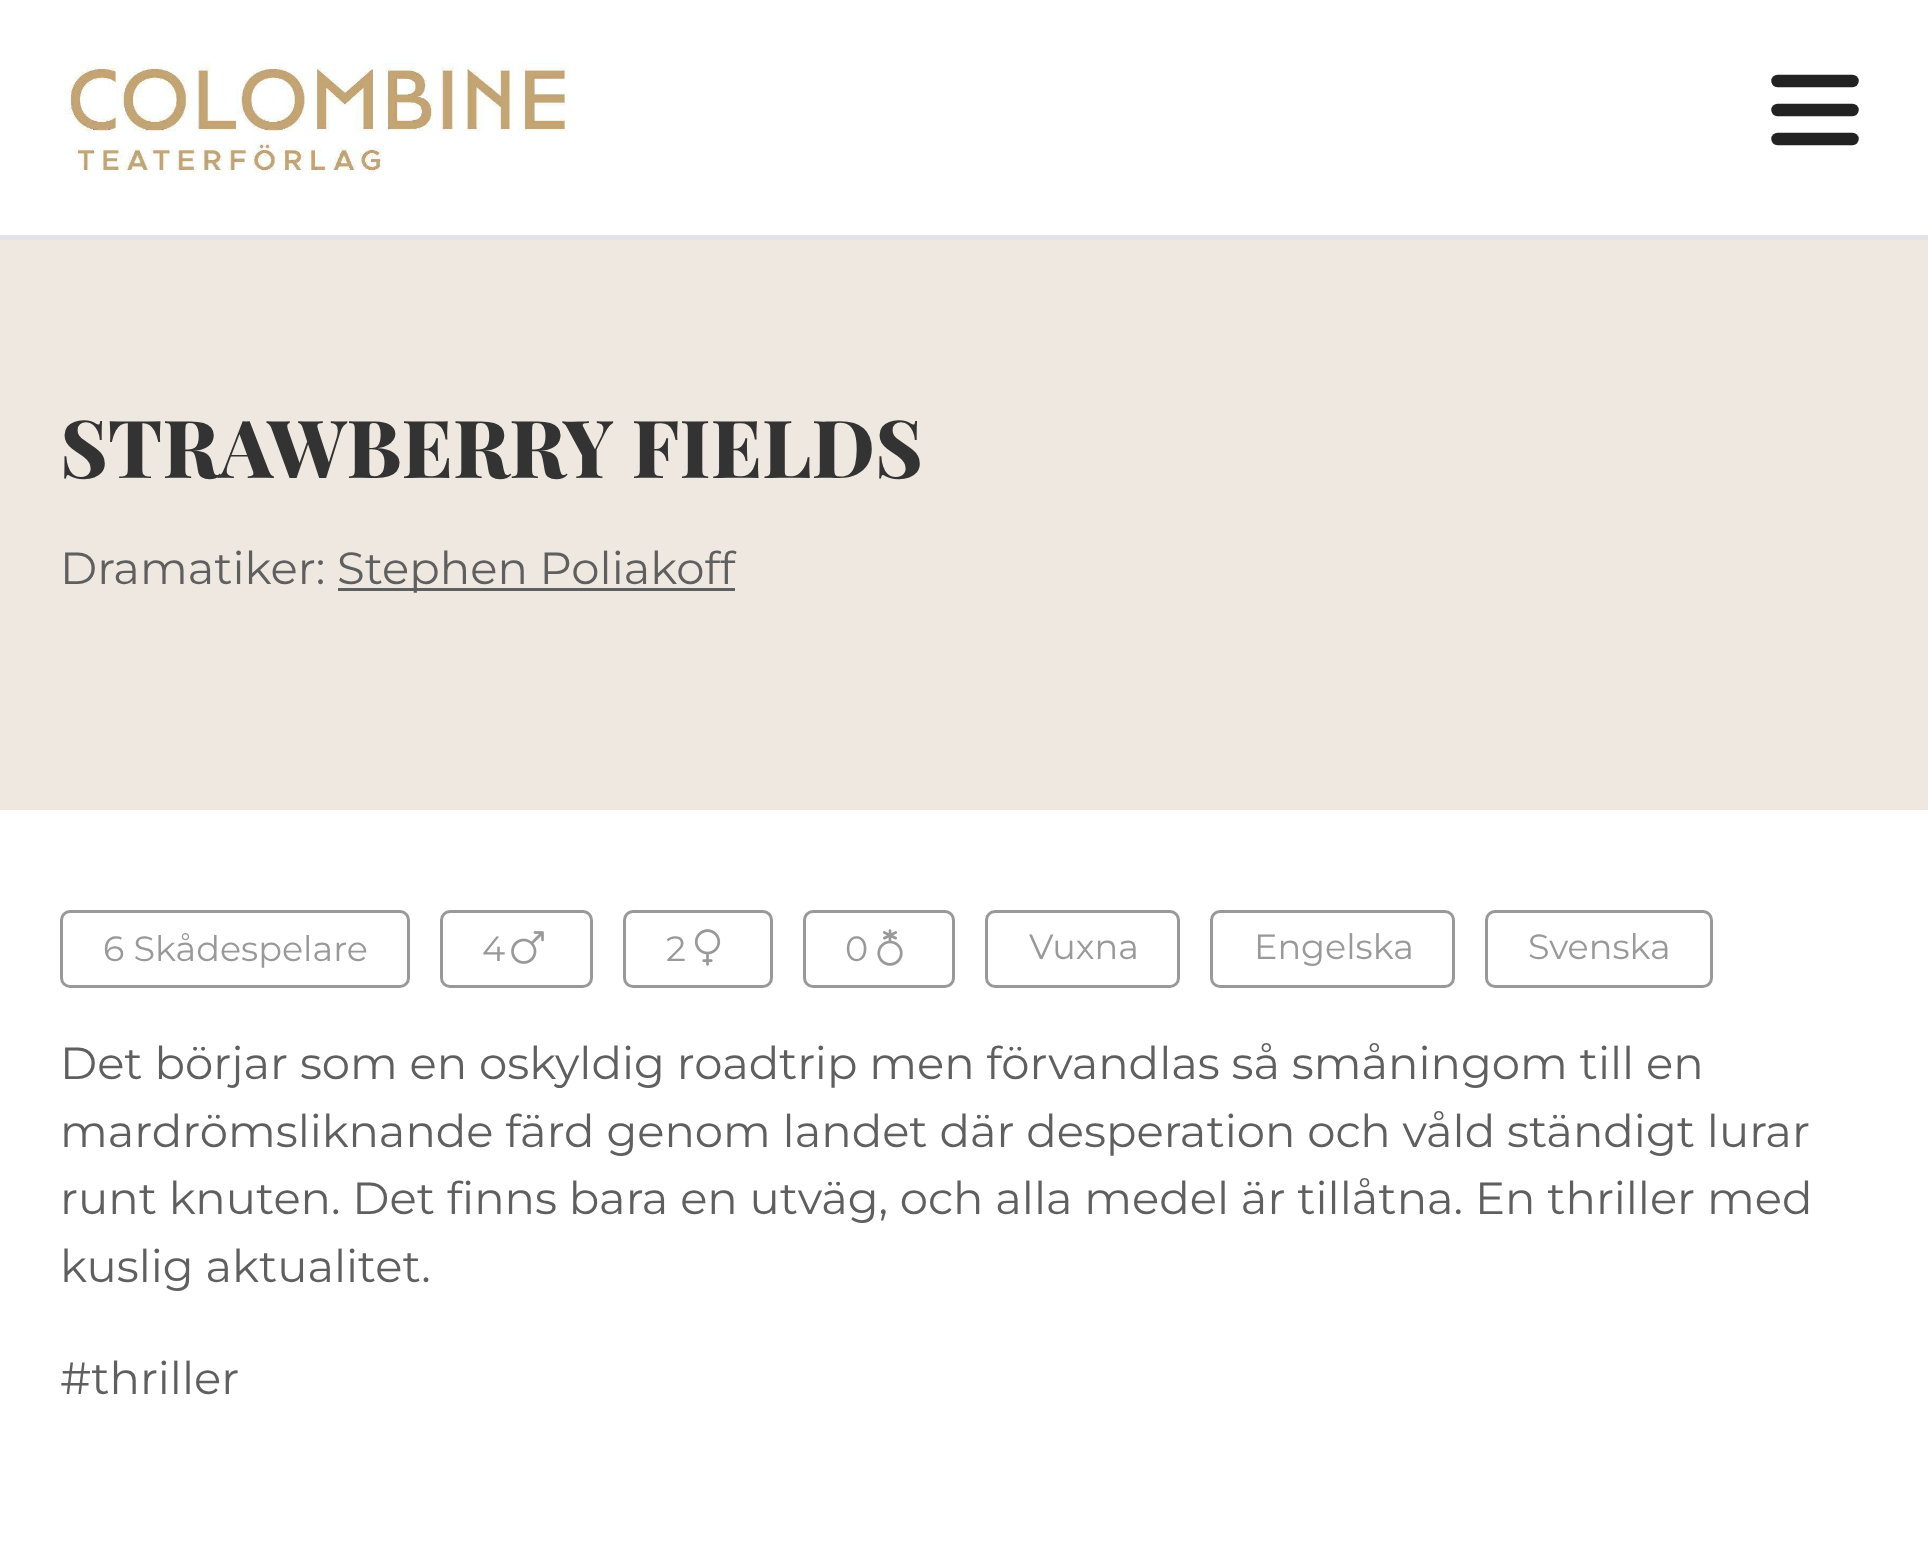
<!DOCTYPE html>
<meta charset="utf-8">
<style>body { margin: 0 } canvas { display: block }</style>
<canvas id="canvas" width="1928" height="1555"></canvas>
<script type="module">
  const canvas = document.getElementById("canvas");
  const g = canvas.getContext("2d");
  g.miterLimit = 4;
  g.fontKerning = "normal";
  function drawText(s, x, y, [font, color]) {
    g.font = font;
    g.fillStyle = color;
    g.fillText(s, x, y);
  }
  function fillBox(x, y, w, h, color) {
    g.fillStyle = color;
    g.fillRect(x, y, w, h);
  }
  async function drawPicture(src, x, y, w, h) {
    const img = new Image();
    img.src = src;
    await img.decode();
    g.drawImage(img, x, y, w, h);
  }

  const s1 = ["800 80px Playfair Display", "#333333"];
  const s2 = ["45px Montserrat", "#5F5F5F"];
  const s3 = ["35px Montserrat", "#999999"];

  fillBox(0, 0, 1928, 1555, "#FFFFFF");
  fillBox(0, 235, 1928, 5, "#E4E3E9");
  await drawPicture("pic1.png", 65, 63, 505, 111);
  g.beginPath();
  g.moveTo(1777.5, 81);
  g.lineTo(1852.5, 81);
  g.strokeStyle = "#222222";
  g.lineWidth = 12.5;
  g.lineCap = "round";
  g.lineJoin = "round";
  g.stroke();
  g.beginPath();
  g.moveTo(1777.5, 110);
  g.lineTo(1852.5, 110);
  g.stroke();
  g.beginPath();
  g.moveTo(1777.5, 139);
  g.lineTo(1852.5, 139);
  g.stroke();
  fillBox(0, 240, 1928, 570, "#EEE8E0");
  drawText("STRAWBERRY FIELDS", 60, 478, s1);
  drawText("Dramatiker:", 60, 584, s2);
  fillBox(338, 588, 397, 3, "#5F5F5F");
  drawText("Stephen Poliakoff", 337, 584, s2);
  g.beginPath();
  g.roundRect(61.5, 911.5, 347, 75, 8.5);
  g.strokeStyle = "#999999";
  g.lineWidth = 3;
  g.lineJoin = "miter";
  g.stroke();
  drawText("6 Skådespelare", 103, 961, s3);
  g.beginPath();
  g.roundRect(441.5, 911.5, 150, 75, 8.5);
  g.stroke();
  drawText("4", 482, 961, s3);
  await drawPicture("pic2.png", 511, 931, 33, 33);
  g.beginPath();
  g.roundRect(624.5, 911.5, 147, 75, 8.5);
  g.stroke();
  drawText("2", 666, 961, s3);
  await drawPicture("pic3.png", 694, 929, 27, 37);
  g.beginPath();
  g.roundRect(804.5, 911.5, 149, 75, 8.5);
  g.stroke();
  drawText("0", 845, 961, s3);
  await drawPicture("pic4.png", 877, 929, 26, 37);
  g.beginPath();
  g.roundRect(986.5, 911.5, 192, 75, 8.5);
  g.stroke();
  drawText("Vuxna", 1029, 959, s3);
  g.beginPath();
  g.roundRect(1211.5, 911.5, 242, 75, 8.5);
  g.stroke();
  drawText("Engelska", 1254, 959, s3);
  g.beginPath();
  g.roundRect(1486.5, 911.5, 225, 75, 8.5);
  g.stroke();
  drawText("Svenska", 1528, 959, s3);
  drawText("Det börjar som en oskyldig roadtrip men förvandlas så småningom till en", 60, 1079, s2);
  drawText("mardrömsliknande färd genom landet där desperation och våld ständigt lurar", 60, 1147, s2);
  drawText("runt knuten. Det finns bara en utväg, och alla medel är tillåtna. En thriller med", 60, 1214, s2);
  drawText("kuslig aktualitet.", 60, 1282, s2);
  drawText("#thriller", 60, 1394, s2);
</script>
